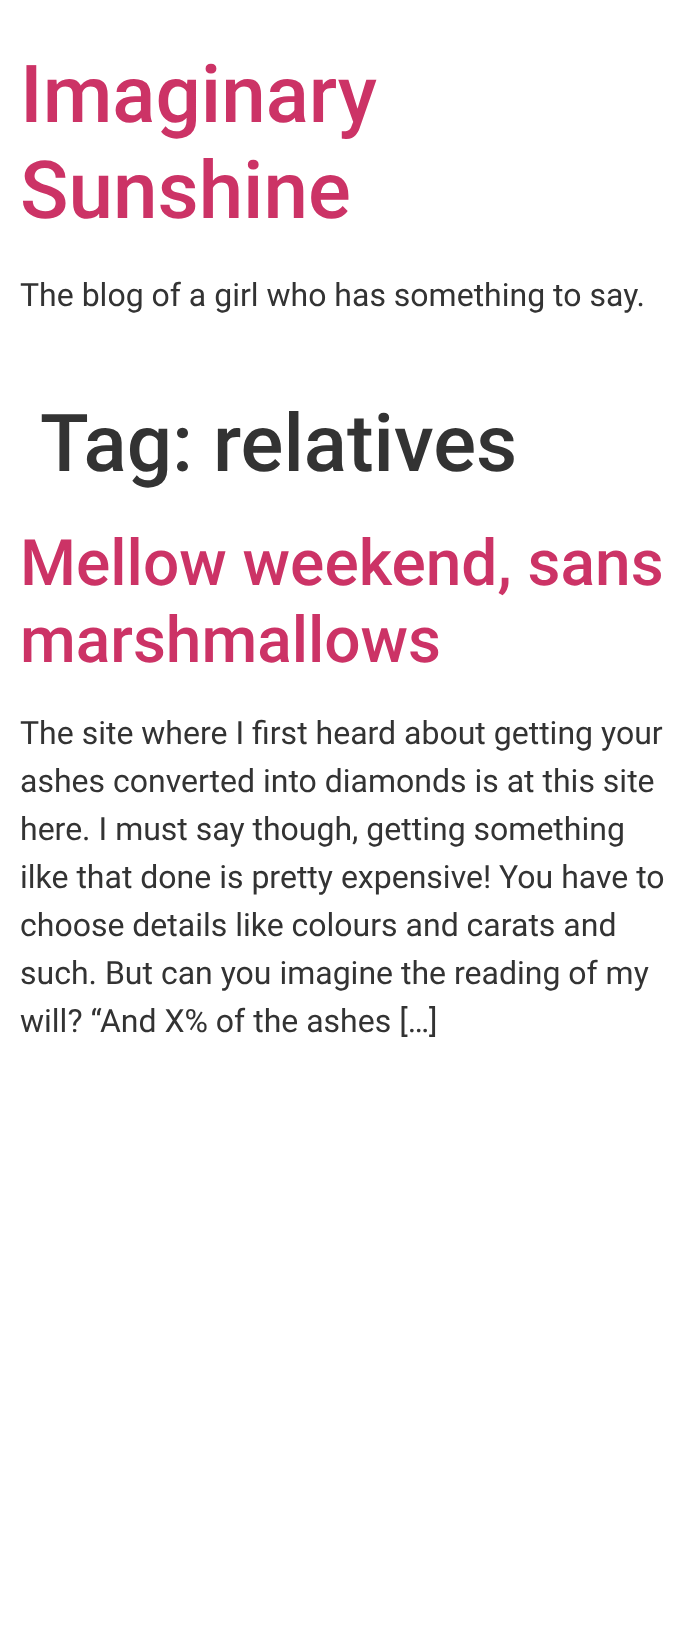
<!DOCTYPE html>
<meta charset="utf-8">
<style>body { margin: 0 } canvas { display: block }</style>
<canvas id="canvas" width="687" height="1629"></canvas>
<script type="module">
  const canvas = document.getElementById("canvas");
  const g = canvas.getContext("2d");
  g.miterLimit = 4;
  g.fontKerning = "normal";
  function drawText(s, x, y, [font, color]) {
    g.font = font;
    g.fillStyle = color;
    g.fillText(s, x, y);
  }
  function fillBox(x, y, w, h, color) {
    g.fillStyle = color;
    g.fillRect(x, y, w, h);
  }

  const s1 = ["500 80px Roboto", "#CC3366"];
  const s2 = ["32px Roboto", "#333333"];
  const s3 = ["500 80px Roboto", "#333333"];
  const s4 = ["500 64px Roboto", "#CC3366"];

  fillBox(0, 0, 687, 1629, "#FFFFFF");
  drawText("Imaginary", 20, 122, s1);
  drawText("Sunshine", 20, 218, s1);
  drawText("The blog of a girl who has something to say.", 20, 306, s2);
  drawText("Tag: relatives", 40, 471, s3);
  drawText("Mellow weekend, sans", 20, 585, s4);
  drawText("marshmallows", 20, 662, s4);
  drawText("The site where I first heard about getting your", 20, 744, s2);
  drawText("ashes converted into diamonds is at this site", 20, 792, s2);
  drawText("here. I must say though, getting something", 20, 840, s2);
  drawText("ilke that done is pretty expensive! You have to", 20, 888, s2);
  drawText("choose details like colours and carats and", 20, 936, s2);
  drawText("such. But can you imagine the reading of my", 20, 984, s2);
  drawText("will? “And X% of the ashes […]", 20, 1032, s2);
</script>
